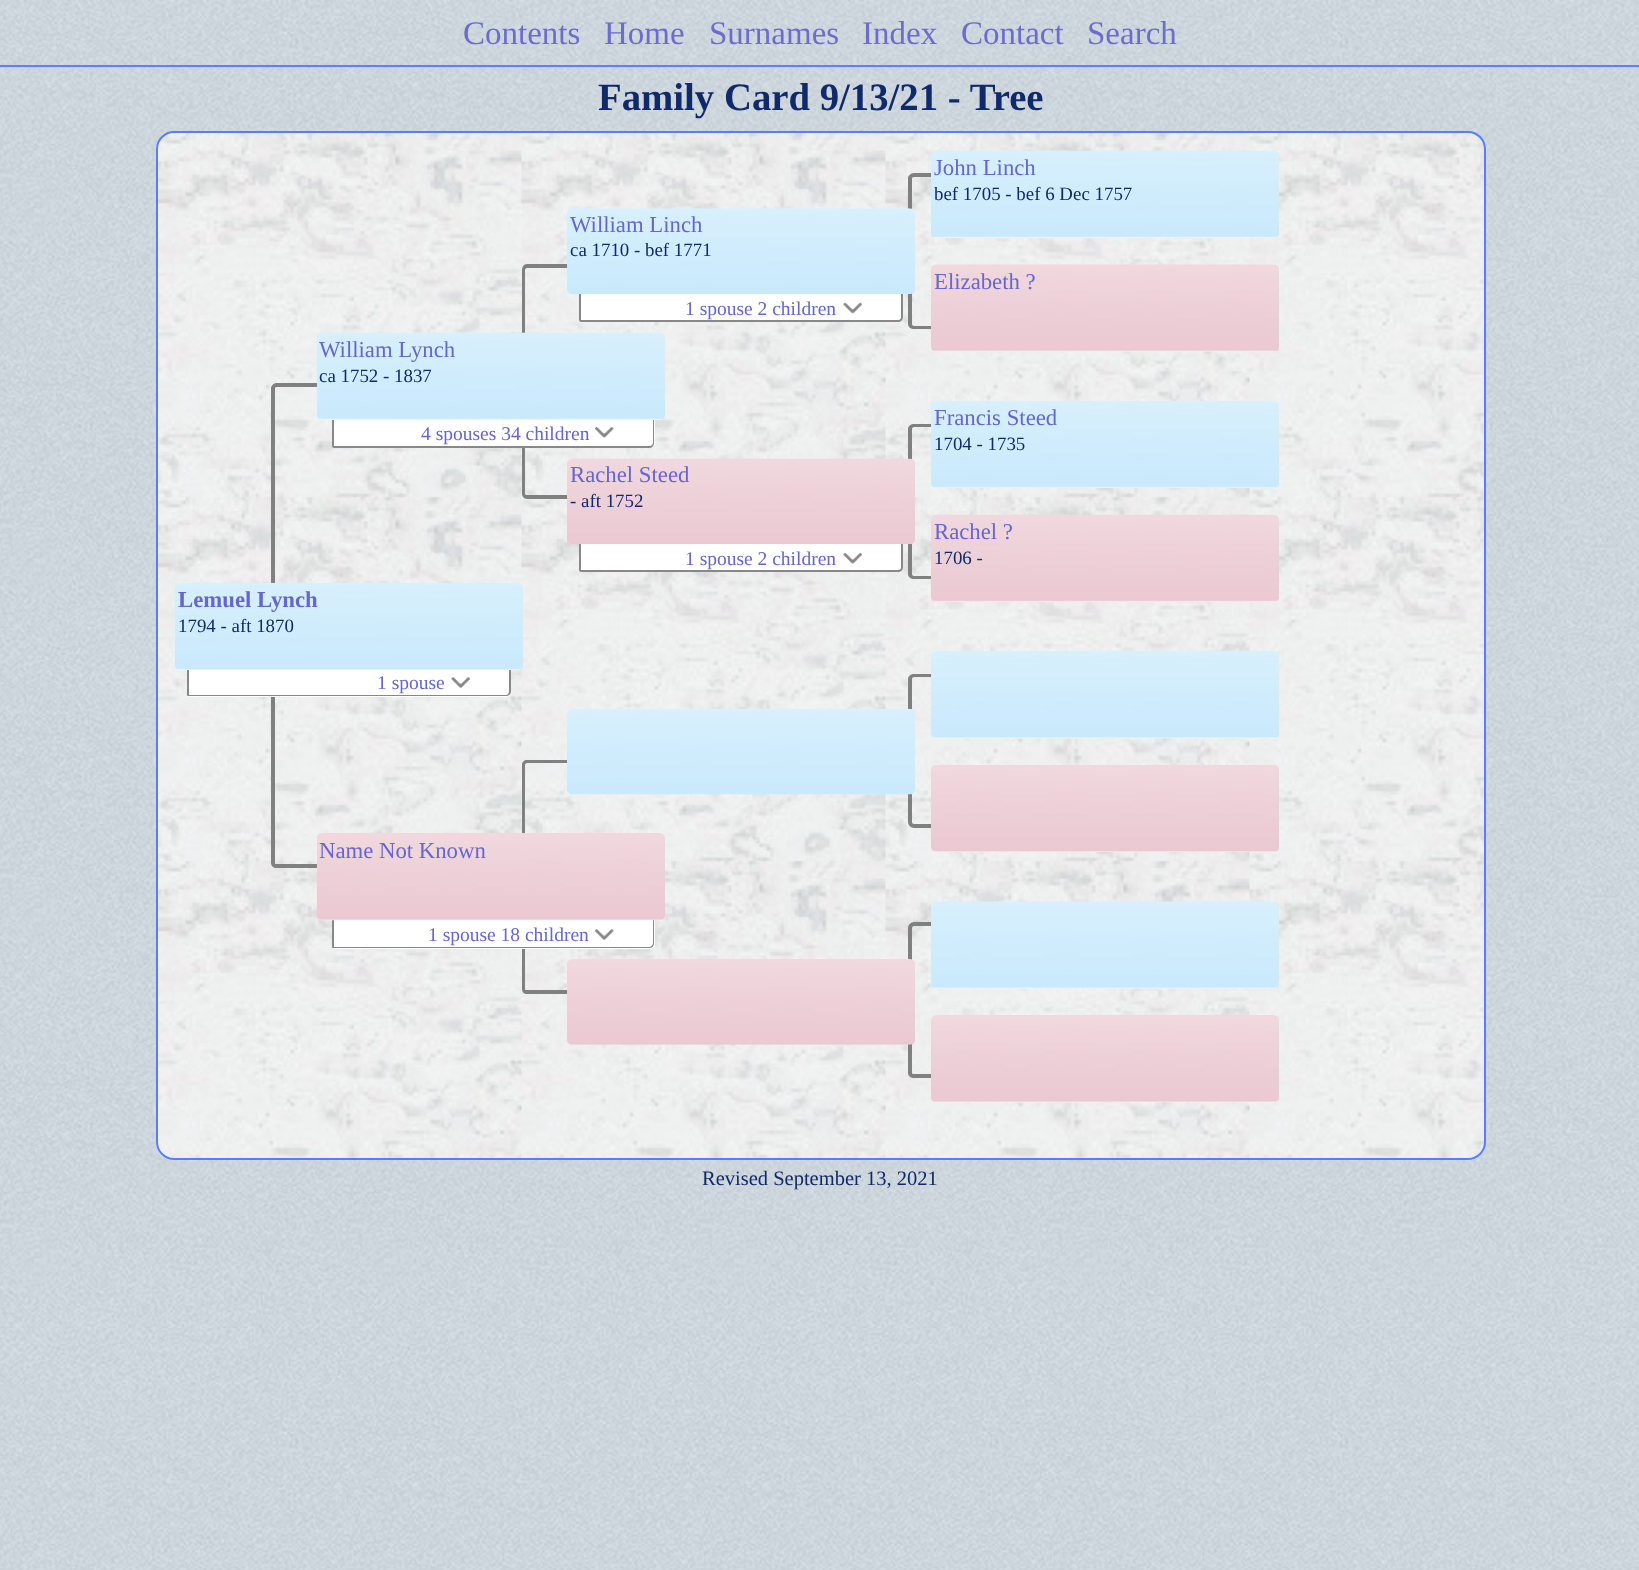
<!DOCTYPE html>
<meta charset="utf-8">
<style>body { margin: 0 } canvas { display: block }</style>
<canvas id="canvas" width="1639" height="1570"></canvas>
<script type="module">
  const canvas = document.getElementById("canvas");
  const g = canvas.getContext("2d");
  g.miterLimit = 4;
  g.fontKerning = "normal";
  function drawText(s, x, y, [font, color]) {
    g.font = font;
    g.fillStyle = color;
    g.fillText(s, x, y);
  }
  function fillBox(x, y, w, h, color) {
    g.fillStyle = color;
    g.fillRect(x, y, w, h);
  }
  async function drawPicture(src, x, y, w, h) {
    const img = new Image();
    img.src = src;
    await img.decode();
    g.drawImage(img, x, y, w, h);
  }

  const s1 = ["33px Liberation Serif", "#6B6CCD"];
  const s2 = ["bold 38.75px Liberation Serif", "#102A69"];
  const s3 = ["22.75px Liberation Serif", "#6666CC"];
  const s4 = ["18.9px Liberation Serif", "#102A69"];
  const s5 = ["19.5px Liberation Serif", "#6666CC"];
  const s6 = ["bold 22.75px Liberation Serif", "#6666CC"];
  const s7 = ["20.5px Liberation Serif", "#102A69"];

  fillBox(0, 0, 1639, 1570, "#FFFFFF");
  await drawPicture("pic1.png", 0, 0, 1639, 1570);
  await drawPicture("pic2.png", 171, 0, 1402, 1);
  fillBox(0, 65, 1639, 2, "rgba(86, 126, 252, 0.95)");
  await drawPicture("pic3.png", 0, 65, 1639, 2);
  fillBox(0, 65, 1639, 2, "rgba(86, 126, 252, 0.95)");
  drawText("Contents", 463, 44, s1);
  drawText("Home", 604, 44, s1);
  drawText("Surnames", 709, 44, s1);
  drawText("Index", 862, 44, s1);
  drawText("Contact", 961, 44, s1);
  drawText("Search", 1087, 44, s1);
  drawText("Family Card 9/13/21 - Tree", 598, 110, s2);
  await drawPicture("pic4.png", 156, 131, 1330, 1029);
  g.beginPath();
  g.roundRect(157, 132, 1328, 1027, 17);
  g.strokeStyle = "#567EFC";
  g.lineWidth = 2;
  g.stroke();
  g.fillStyle = "#808080";
  g.beginPath();
  g.moveTo(914, 173);
  g.lineTo(975, 173);
  g.bezierCurveTo(978, 173, 980, 176, 980, 178);
  g.lineTo(980, 324);
  g.bezierCurveTo(980, 327, 978, 329, 975, 329);
  g.lineTo(914, 329);
  g.bezierCurveTo(911, 329, 908, 327, 908, 324);
  g.lineTo(908, 178);
  g.bezierCurveTo(908, 176, 911, 173, 914, 173);
  g.closePath();
  g.moveTo(914, 177);
  g.lineTo(975, 177);
  g.bezierCurveTo(978, 177, 980, 178, 980, 178);
  g.lineTo(980, 324);
  g.bezierCurveTo(980, 325, 978, 326, 975, 326);
  g.lineTo(914, 326);
  g.bezierCurveTo(913, 326, 912, 325, 912, 324);
  g.lineTo(912, 178);
  g.bezierCurveTo(912, 178, 913, 177, 914, 177);
  g.closePath();
  g.fill("evenodd");
  await drawPicture("pic5.png", 931, 150, 348, 88);
  drawText("John Linch", 934, 175, s3);
  drawText("bef 1705 - bef 6 Dec 1757", 934, 200, s4);
  g.fillStyle = "#808080";
  g.beginPath();
  g.moveTo(527, 264);
  g.lineTo(588, 264);
  g.bezierCurveTo(591, 264, 593, 267, 593, 270);
  g.lineTo(593, 494);
  g.bezierCurveTo(593, 496, 591, 499, 588, 499);
  g.lineTo(527, 499);
  g.bezierCurveTo(524, 499, 522, 496, 522, 494);
  g.lineTo(522, 270);
  g.bezierCurveTo(522, 267, 524, 264, 527, 264);
  g.closePath();
  g.moveTo(527, 268);
  g.lineTo(588, 268);
  g.bezierCurveTo(591, 268, 593, 269, 593, 270);
  g.lineTo(593, 494);
  g.bezierCurveTo(593, 494, 591, 495, 588, 495);
  g.lineTo(527, 495);
  g.bezierCurveTo(526, 495, 525, 494, 525, 494);
  g.lineTo(525, 270);
  g.bezierCurveTo(525, 269, 526, 268, 527, 268);
  g.closePath();
  g.fill("evenodd");
  g.fillStyle = "#FFFFFF";
  g.beginPath();
  g.roundRect(579, 292, 324, 30, [0, 0, 5, 2]);
  g.fill();
  g.fillStyle = "#888888";
  g.beginPath();
  g.moveTo(579, 292);
  g.lineTo(903, 292);
  g.lineTo(903, 317);
  g.bezierCurveTo(903, 320, 901, 322, 898, 322);
  g.lineTo(581, 322);
  g.bezierCurveTo(580, 322, 579, 321, 579, 320);
  g.closePath();
  g.moveTo(581, 292);
  g.lineTo(901, 292);
  g.lineTo(901, 317);
  g.bezierCurveTo(901, 319, 900, 320, 898, 320);
  g.lineTo(581, 320);
  g.closePath();
  g.fill("evenodd");
  await drawPicture("pic6.png", 567, 208, 348, 86);
  drawText("William Linch", 570, 232, s3);
  drawText("ca 1710 - bef 1771", 570, 256, s4);
  await drawPicture("pic7.png", 931, 264, 348, 88);
  drawText("Elizabeth ?", 934, 289, s3);
  drawText("1 spouse 2 children", 685, 315, s5);
  await drawPicture("pic8.png", 843, 302, 19, 12);
  g.fillStyle = "#808080";
  g.beginPath();
  g.moveTo(276, 383);
  g.lineTo(348, 383);
  g.bezierCurveTo(351, 383, 354, 386, 354, 388);
  g.lineTo(354, 863);
  g.bezierCurveTo(354, 866, 351, 868, 348, 868);
  g.lineTo(276, 868);
  g.bezierCurveTo(274, 868, 271, 866, 271, 863);
  g.lineTo(271, 388);
  g.bezierCurveTo(271, 386, 274, 383, 276, 383);
  g.closePath();
  g.moveTo(276, 387);
  g.lineTo(348, 387);
  g.bezierCurveTo(351, 387, 354, 388, 354, 388);
  g.lineTo(354, 863);
  g.bezierCurveTo(354, 864, 351, 864, 348, 864);
  g.lineTo(276, 864);
  g.bezierCurveTo(276, 864, 275, 864, 275, 863);
  g.lineTo(275, 388);
  g.bezierCurveTo(275, 388, 276, 387, 276, 387);
  g.closePath();
  g.fill("evenodd");
  g.fillStyle = "#FFFFFF";
  g.beginPath();
  g.roundRect(333, 417, 322, 31, [0, 0, 5, 2]);
  g.fill();
  g.fillStyle = "#888888";
  g.beginPath();
  g.moveTo(332, 416);
  g.lineTo(654, 416);
  g.lineTo(654, 443);
  g.bezierCurveTo(654, 446, 652, 448, 649, 448);
  g.lineTo(334, 448);
  g.bezierCurveTo(333, 448, 332, 447, 332, 446);
  g.closePath();
  g.moveTo(334, 416);
  g.lineTo(653, 416);
  g.lineTo(653, 443);
  g.bezierCurveTo(653, 445, 651, 446, 649, 446);
  g.lineTo(334, 446);
  g.closePath();
  g.fill("evenodd");
  await drawPicture("pic9.png", 316, 332, 349, 88);
  drawText("William Lynch", 319, 357, s3);
  drawText("ca 1752 - 1837", 319, 382, s4);
  g.fillStyle = "#808080";
  g.beginPath();
  g.moveTo(914, 424);
  g.lineTo(975, 424);
  g.bezierCurveTo(978, 424, 980, 426, 980, 429);
  g.lineTo(980, 574);
  g.bezierCurveTo(980, 577, 978, 579, 975, 579);
  g.lineTo(914, 579);
  g.bezierCurveTo(911, 579, 908, 577, 908, 574);
  g.lineTo(908, 429);
  g.bezierCurveTo(908, 426, 911, 424, 914, 424);
  g.closePath();
  g.moveTo(914, 427);
  g.lineTo(975, 427);
  g.bezierCurveTo(978, 427, 980, 428, 980, 429);
  g.lineTo(980, 574);
  g.bezierCurveTo(980, 575, 978, 576, 975, 576);
  g.lineTo(914, 576);
  g.bezierCurveTo(913, 576, 912, 575, 912, 574);
  g.lineTo(912, 429);
  g.bezierCurveTo(912, 428, 913, 427, 914, 427);
  g.closePath();
  g.fill("evenodd");
  await drawPicture("pic10.png", 931, 401, 348, 87);
  drawText("Francis Steed", 934, 425, s3);
  drawText("1704 - 1735", 934, 450, s4);
  drawText("4 spouses 34 children", 421, 440, s5);
  await drawPicture("pic11.png", 595, 427, 19, 11);
  g.fillStyle = "#FFFFFF";
  g.beginPath();
  g.roundRect(579, 541, 324, 31, [0, 0, 5, 2]);
  g.fill();
  g.fillStyle = "#888888";
  g.beginPath();
  g.moveTo(579, 541);
  g.lineTo(903, 541);
  g.lineTo(903, 567);
  g.bezierCurveTo(903, 570, 901, 572, 898, 572);
  g.lineTo(581, 572);
  g.bezierCurveTo(580, 572, 579, 571, 579, 570);
  g.closePath();
  g.moveTo(581, 541);
  g.lineTo(901, 541);
  g.lineTo(901, 567);
  g.bezierCurveTo(901, 569, 900, 570, 898, 570);
  g.lineTo(581, 570);
  g.closePath();
  g.fill("evenodd");
  await drawPicture("pic12.png", 567, 458, 348, 87);
  drawText("Rachel Steed", 570, 482, s3);
  drawText("- aft 1752", 570, 507, s4);
  drawText("1 spouse 2 children", 685, 565, s5);
  await drawPicture("pic13.png", 843, 553, 19, 11);
  await drawPicture("pic14.png", 931, 514, 348, 88);
  drawText("Rachel ?", 934, 539, s3);
  drawText("1706 -", 934, 564, s4);
  g.fillStyle = "#FFFFFF";
  g.beginPath();
  g.roundRect(187, 667, 324, 30, [0, 0, 5, 2]);
  g.fill();
  g.fillStyle = "#888888";
  g.beginPath();
  g.moveTo(187, 667);
  g.lineTo(511, 667);
  g.lineTo(511, 691);
  g.bezierCurveTo(511, 694, 509, 696, 506, 696);
  g.lineTo(189, 696);
  g.bezierCurveTo(188, 696, 187, 696, 187, 695);
  g.closePath();
  g.moveTo(189, 667);
  g.lineTo(509, 667);
  g.lineTo(509, 691);
  g.bezierCurveTo(509, 693, 508, 695, 506, 695);
  g.lineTo(189, 695);
  g.closePath();
  g.fill("evenodd");
  await drawPicture("pic15.png", 175, 582, 348, 89);
  drawText("Lemuel Lynch", 178, 607, s6);
  drawText("1794 - aft 1870", 178, 632, s4);
  g.fillStyle = "#808080";
  g.beginPath();
  g.moveTo(914, 674);
  g.lineTo(975, 674);
  g.bezierCurveTo(978, 674, 980, 676, 980, 679);
  g.lineTo(980, 822);
  g.bezierCurveTo(980, 825, 978, 828, 975, 828);
  g.lineTo(914, 828);
  g.bezierCurveTo(911, 828, 908, 825, 908, 822);
  g.lineTo(908, 679);
  g.bezierCurveTo(908, 676, 911, 674, 914, 674);
  g.closePath();
  g.moveTo(914, 677);
  g.lineTo(975, 677);
  g.bezierCurveTo(978, 677, 980, 678, 980, 679);
  g.lineTo(980, 822);
  g.bezierCurveTo(980, 823, 978, 824, 975, 824);
  g.lineTo(914, 824);
  g.bezierCurveTo(913, 824, 912, 823, 912, 822);
  g.lineTo(912, 679);
  g.bezierCurveTo(912, 678, 913, 677, 914, 677);
  g.closePath();
  g.fill("evenodd");
  await drawPicture("pic16.png", 931, 651, 348, 88);
  drawText("1 spouse", 377, 689, s5);
  await drawPicture("pic17.png", 451, 677, 19, 11);
  g.fillStyle = "#808080";
  g.beginPath();
  g.moveTo(527, 760);
  g.lineTo(588, 760);
  g.bezierCurveTo(591, 760, 593, 762, 593, 765);
  g.lineTo(593, 989);
  g.bezierCurveTo(593, 992, 591, 994, 588, 994);
  g.lineTo(527, 994);
  g.bezierCurveTo(524, 994, 522, 992, 522, 989);
  g.lineTo(522, 765);
  g.bezierCurveTo(522, 762, 524, 760, 527, 760);
  g.closePath();
  g.moveTo(527, 763);
  g.lineTo(588, 763);
  g.bezierCurveTo(591, 763, 593, 764, 593, 765);
  g.lineTo(593, 989);
  g.bezierCurveTo(593, 990, 591, 990, 588, 990);
  g.lineTo(527, 990);
  g.bezierCurveTo(526, 990, 525, 990, 525, 989);
  g.lineTo(525, 765);
  g.bezierCurveTo(525, 764, 526, 763, 527, 763);
  g.closePath();
  g.fill("evenodd");
  g.fillStyle = "#FFFFFF";
  g.beginPath();
  g.roundRect(333, 917, 322, 32, [0, 0, 5, 2]);
  g.fill();
  g.fillStyle = "#888888";
  g.beginPath();
  g.moveTo(332, 917);
  g.lineTo(654, 917);
  g.lineTo(654, 943);
  g.bezierCurveTo(654, 946, 652, 948, 649, 948);
  g.lineTo(334, 948);
  g.bezierCurveTo(333, 948, 332, 948, 332, 947);
  g.closePath();
  g.moveTo(334, 917);
  g.lineTo(653, 917);
  g.lineTo(653, 943);
  g.bezierCurveTo(653, 945, 651, 947, 649, 947);
  g.lineTo(334, 947);
  g.closePath();
  g.fill("evenodd");
  await drawPicture("pic18.png", 316, 833, 349, 88);
  drawText("Name Not Known", 319, 858, s3);
  await drawPicture("pic19.png", 567, 708, 348, 87);
  await drawPicture("pic20.png", 931, 765, 348, 87);
  g.fillStyle = "#808080";
  g.beginPath();
  g.moveTo(914, 922);
  g.lineTo(975, 922);
  g.bezierCurveTo(978, 922, 980, 925, 980, 928);
  g.lineTo(980, 1073);
  g.bezierCurveTo(980, 1076, 978, 1078, 975, 1078);
  g.lineTo(914, 1078);
  g.bezierCurveTo(911, 1078, 908, 1076, 908, 1073);
  g.lineTo(908, 928);
  g.bezierCurveTo(908, 925, 911, 922, 914, 922);
  g.closePath();
  g.moveTo(914, 926);
  g.lineTo(975, 926);
  g.bezierCurveTo(978, 926, 980, 927, 980, 928);
  g.lineTo(980, 1073);
  g.bezierCurveTo(980, 1074, 978, 1074, 975, 1074);
  g.lineTo(914, 1074);
  g.bezierCurveTo(913, 1074, 912, 1074, 912, 1073);
  g.lineTo(912, 928);
  g.bezierCurveTo(912, 927, 913, 926, 914, 926);
  g.closePath();
  g.fill("evenodd");
  await drawPicture("pic21.png", 931, 901, 348, 88);
  drawText("1 spouse 18 children", 428, 941, s5);
  await drawPicture("pic22.png", 595, 929, 19, 11);
  await drawPicture("pic23.png", 567, 959, 348, 86);
  await drawPicture("pic24.png", 931, 1015, 348, 88);
  drawText("Revised September 13, 2021", 702, 1185, s7);
</script>
